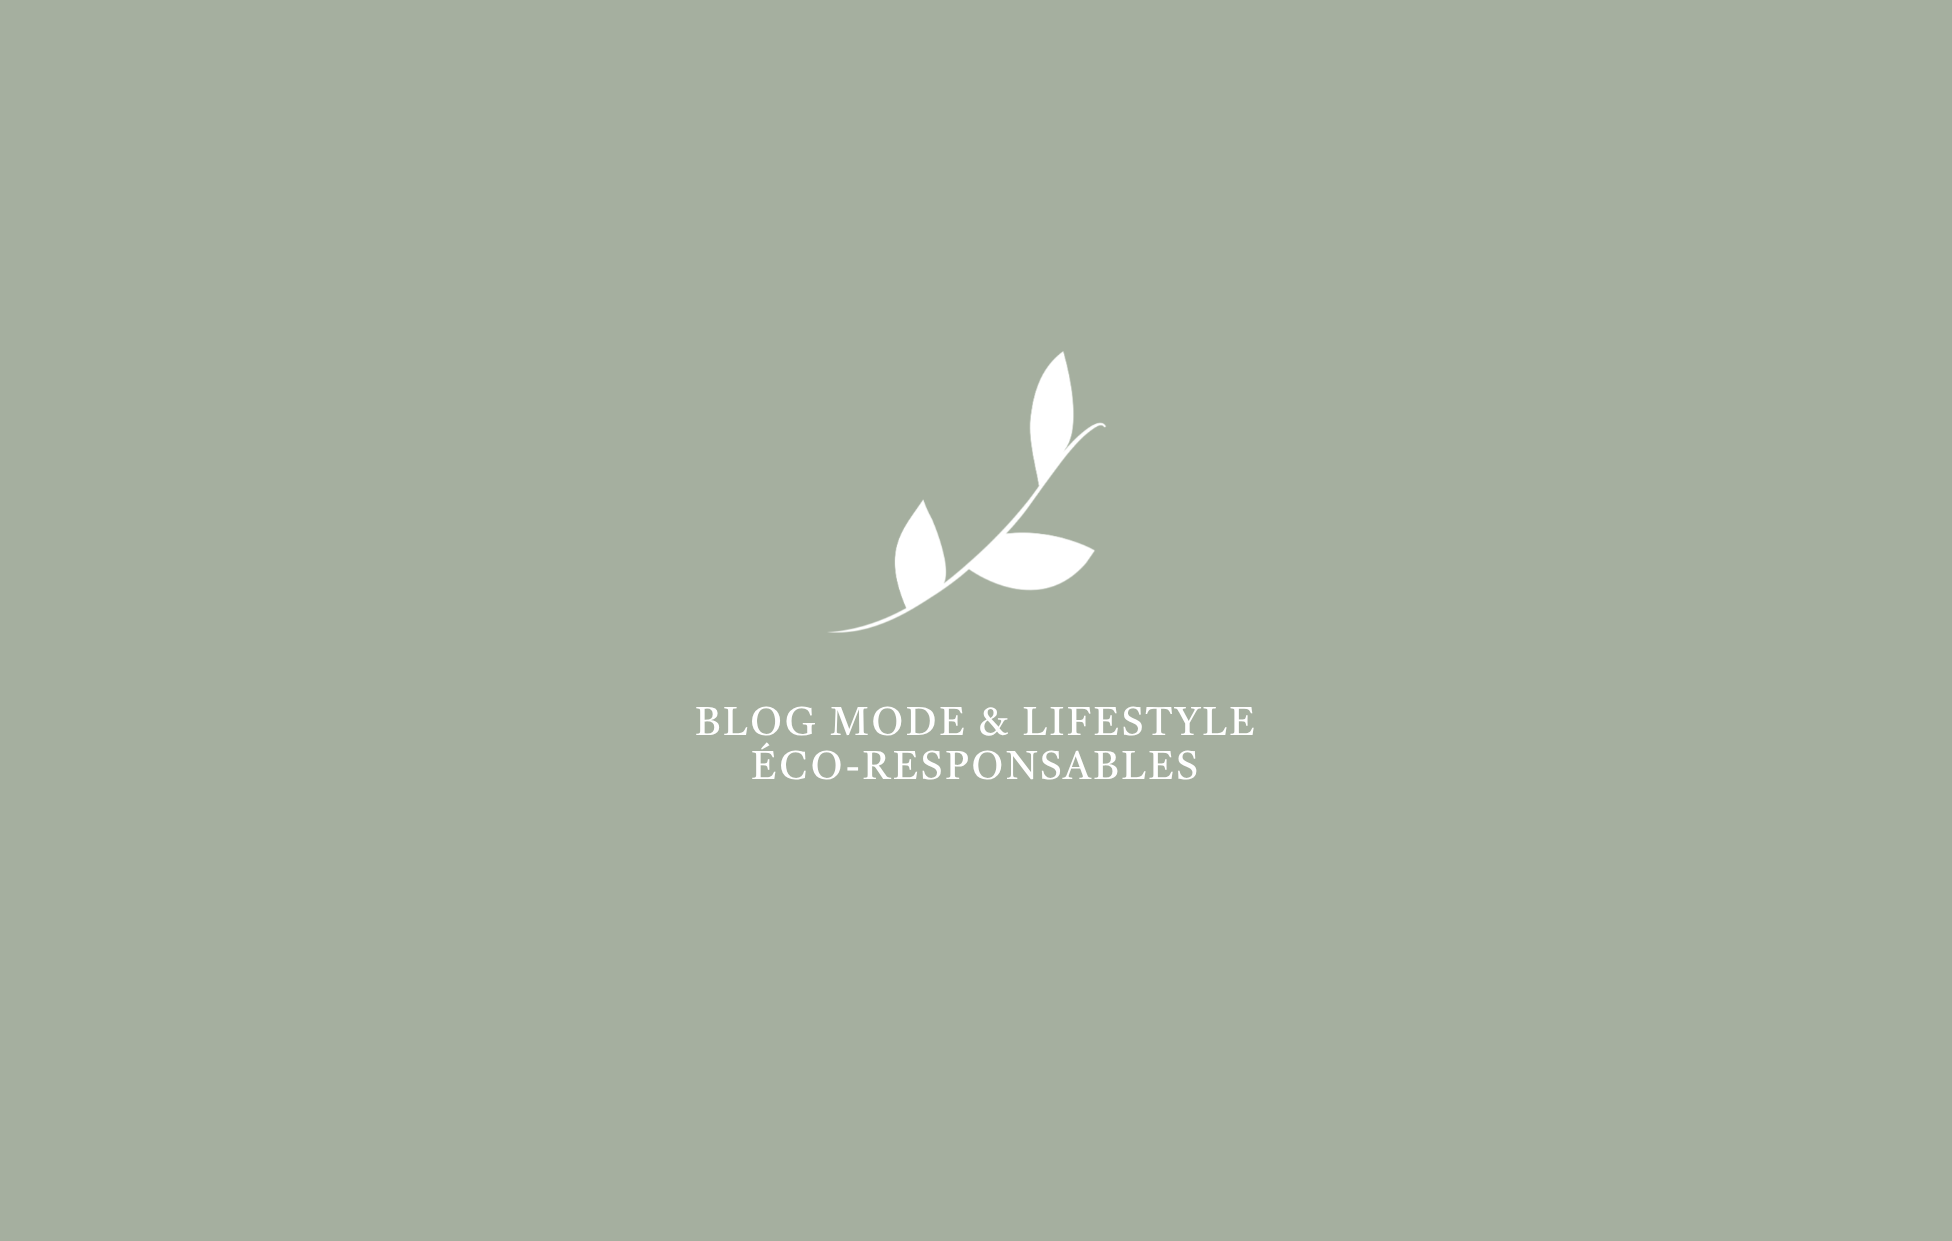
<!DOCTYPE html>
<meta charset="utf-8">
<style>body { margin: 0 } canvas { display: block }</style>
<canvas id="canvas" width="1952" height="1241"></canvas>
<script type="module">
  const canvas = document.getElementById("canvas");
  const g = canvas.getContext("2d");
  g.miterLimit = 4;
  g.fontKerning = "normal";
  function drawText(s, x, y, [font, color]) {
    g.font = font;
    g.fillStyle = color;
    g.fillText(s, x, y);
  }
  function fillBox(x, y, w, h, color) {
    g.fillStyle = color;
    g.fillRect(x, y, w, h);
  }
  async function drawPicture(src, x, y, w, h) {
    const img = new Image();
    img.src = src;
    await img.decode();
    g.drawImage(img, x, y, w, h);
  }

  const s1 = ["40px Castoro", "#FFFFFF"];

  fillBox(0, 0, 1952, 1241, "#A5AF9F");
  await drawPicture("pic1.png", 827, 351, 280, 282);
  g.letterSpacing = "2.5px";
  drawText("BLOG MODE & LIFESTYLE", 695, 735, s1);
  drawText("ÉCO-RESPONSABLES", 751, 779, s1);
</script>
